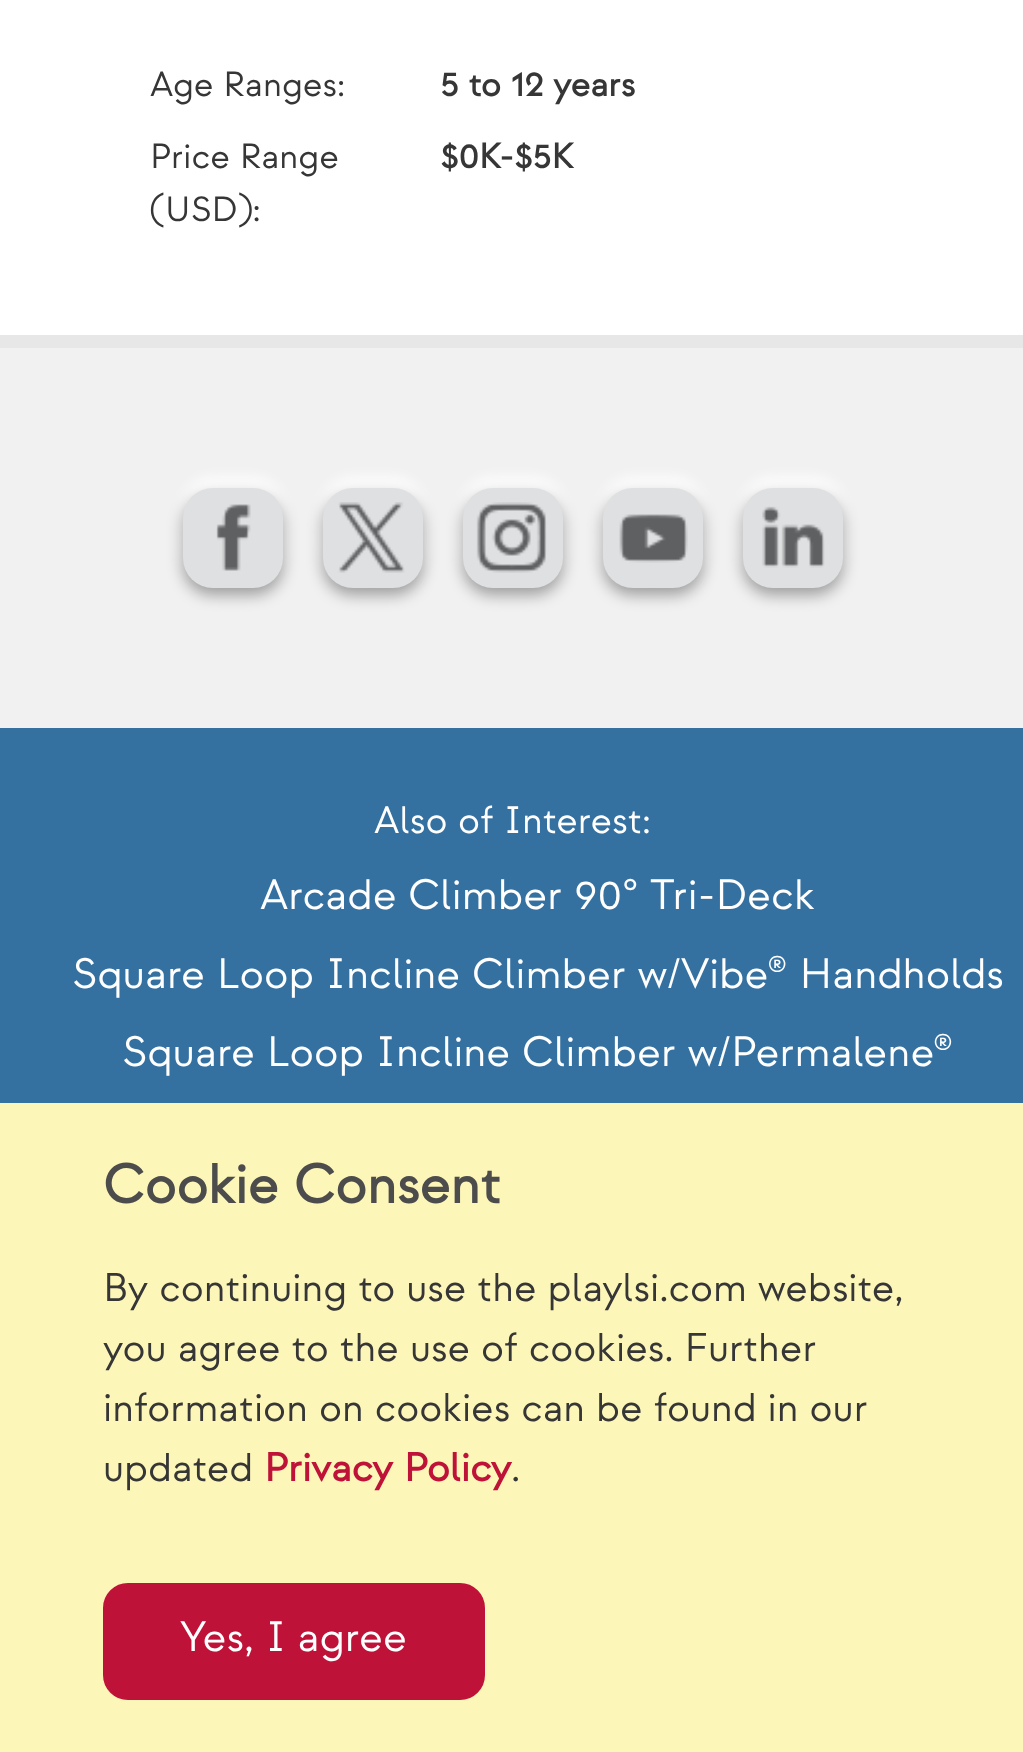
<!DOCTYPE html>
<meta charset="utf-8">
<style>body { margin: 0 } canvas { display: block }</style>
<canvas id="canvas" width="1023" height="1752"></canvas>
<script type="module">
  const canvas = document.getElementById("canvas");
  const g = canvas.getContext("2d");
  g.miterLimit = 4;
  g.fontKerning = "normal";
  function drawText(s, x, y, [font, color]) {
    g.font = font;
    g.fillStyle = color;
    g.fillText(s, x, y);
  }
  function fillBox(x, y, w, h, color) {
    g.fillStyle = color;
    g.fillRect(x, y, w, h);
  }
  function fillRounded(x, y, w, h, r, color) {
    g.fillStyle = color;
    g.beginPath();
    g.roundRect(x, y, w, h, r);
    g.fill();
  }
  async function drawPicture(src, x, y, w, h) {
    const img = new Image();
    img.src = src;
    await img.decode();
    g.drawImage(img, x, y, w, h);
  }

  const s1 = ["35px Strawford", "#363636"];
  const s2 = ["bold 35px Strawford", "#363636"];
  const s3 = ["38.25px Strawford", "#FFFFFF"];
  const s4 = ["42.5px Strawford", "#FFFFFF"];
  const s5 = ["bold 55px Strawford", "#4C4C4C"];
  const s6 = ["40px Strawford", "#363636"];
  const s7 = ["bold 40px Strawford", "#BF1238"];

  fillBox(0, 0, 1023, 1752, "#F1F1F1");
  fillBox(0, 0, 1023, 335, "#FFFFFF");
  fillBox(0, 335, 1023, 13, "#E7E7E7");
  drawText("Age Ranges:", 150, 96, s1);
  drawText("5 to 12 years", 440, 96, s2);
  drawText("Price Range", 150, 168, s1);
  drawText("(USD):", 150, 221, s1);
  drawText("$0K-$5K", 440, 168, s2);
  g.fillStyle = "#FFFFFF";
  g.filter = "blur(7.5px)";
  g.beginPath();
  g.roundRect(183, 478, 100, 100, 30);
  g.fill();
  g.filter = "none";
  g.fillStyle = "rgba(0, 0, 0, 0.35)";
  g.filter = "blur(7.5px)";
  g.beginPath();
  g.roundRect(183, 495, 100, 100, 30);
  g.fill();
  g.filter = "none";
  fillRounded(183, 488, 100, 100, 30, "#DFE0E1");
  await drawPicture("pic1.png", 216, 504, 35, 67);
  g.fillStyle = "#FFFFFF";
  g.filter = "blur(7.5px)";
  g.beginPath();
  g.roundRect(323, 478, 100, 100, 30);
  g.fill();
  g.filter = "none";
  g.fillStyle = "rgba(0, 0, 0, 0.35)";
  g.filter = "blur(7.5px)";
  g.beginPath();
  g.roundRect(323, 495, 100, 100, 30);
  g.fill();
  g.filter = "none";
  fillRounded(323, 488, 100, 100, 30, "#DFE0E1");
  await drawPicture("pic2.png", 338, 502, 67, 71);
  g.fillStyle = "#FFFFFF";
  g.filter = "blur(7.5px)";
  g.beginPath();
  g.roundRect(463, 478, 100, 100, 30);
  g.fill();
  g.filter = "none";
  g.fillStyle = "rgba(0, 0, 0, 0.35)";
  g.filter = "blur(7.5px)";
  g.beginPath();
  g.roundRect(463, 495, 100, 100, 30);
  g.fill();
  g.filter = "none";
  fillRounded(463, 488, 100, 100, 30, "#DFE0E1");
  await drawPicture("pic3.png", 476, 502, 71, 71);
  g.fillStyle = "#FFFFFF";
  g.filter = "blur(7.5px)";
  g.beginPath();
  g.roundRect(603, 478, 100, 100, 30);
  g.fill();
  g.filter = "none";
  g.fillStyle = "rgba(0, 0, 0, 0.35)";
  g.filter = "blur(7.5px)";
  g.beginPath();
  g.roundRect(603, 495, 100, 100, 30);
  g.fill();
  g.filter = "none";
  fillRounded(603, 488, 100, 100, 30, "#DFE0E1");
  await drawPicture("pic4.png", 619, 514, 69, 49);
  g.fillStyle = "#FFFFFF";
  g.filter = "blur(7.5px)";
  g.beginPath();
  g.roundRect(743, 478, 100, 100, 30);
  g.fill();
  g.filter = "none";
  g.fillStyle = "rgba(0, 0, 0, 0.35)";
  g.filter = "blur(7.5px)";
  g.beginPath();
  g.roundRect(743, 495, 100, 100, 30);
  g.fill();
  g.filter = "none";
  fillRounded(743, 488, 100, 100, 30, "#DFE0E1");
  await drawPicture("pic5.png", 762, 506, 63, 62);
  fillBox(0, 728, 1023, 375, "#3571A0");
  drawText("Also of Interest:", 374, 833, s3);
  drawText("Arcade Climber 90° Tri-Deck", 260, 909, s4);
  drawText("Square Loop Incline Climber w/Vibe® Handholds", 72, 988, s4);
  drawText("Square Loop Incline Climber w/Permalene®", 122, 1066, s4);
  fillBox(0, 1103, 1023, 649, "#FDF6B9");
  drawText("Cookie Consent", 103, 1203, s5);
  drawText("By continuing to use the playlsi.com website,", 103, 1301, s6);
  drawText("you agree to the use of cookies. Further", 103, 1361, s6);
  drawText("information on cookies can be found in our", 103, 1421, s6);
  drawText("updated", 103, 1481, s6);
  drawText("Privacy Policy", 264, 1481, s7);
  drawText(".", 511, 1481, s6);
  g.fillStyle = "#BF1238";
  g.beginPath();
  g.roundRect(104.5, 1584.5, 379, 114, 23.5);
  g.fill();
  g.strokeStyle = "#BF1238";
  g.lineWidth = 3;
  g.stroke();
  drawText("Yes, I agree", 180, 1651, s4);
</script>
